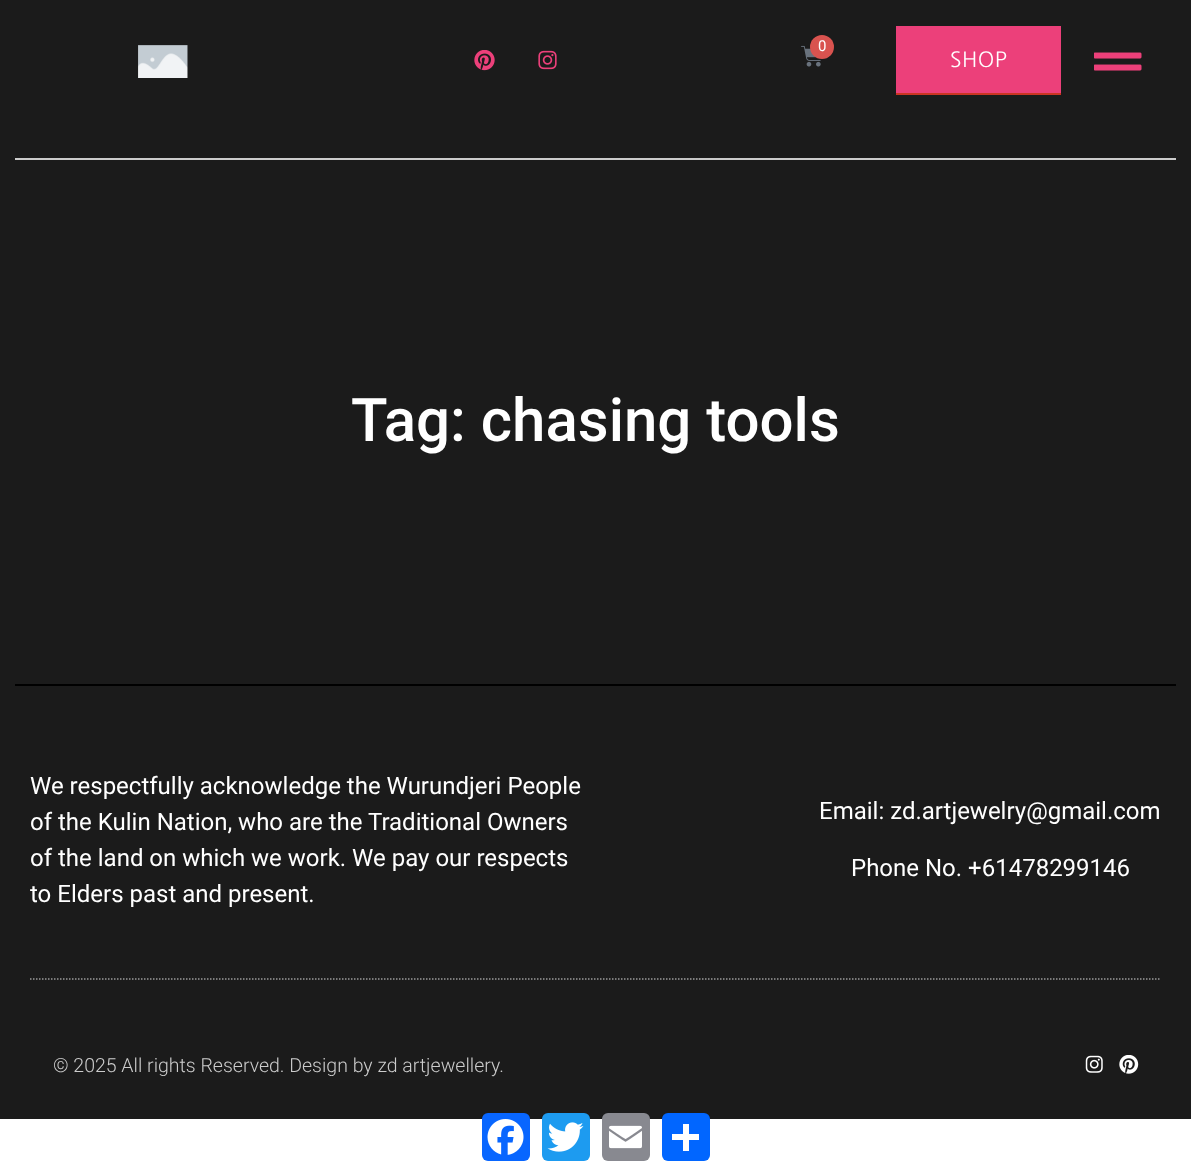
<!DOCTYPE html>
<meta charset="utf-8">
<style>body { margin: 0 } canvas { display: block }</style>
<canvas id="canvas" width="1191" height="1173"></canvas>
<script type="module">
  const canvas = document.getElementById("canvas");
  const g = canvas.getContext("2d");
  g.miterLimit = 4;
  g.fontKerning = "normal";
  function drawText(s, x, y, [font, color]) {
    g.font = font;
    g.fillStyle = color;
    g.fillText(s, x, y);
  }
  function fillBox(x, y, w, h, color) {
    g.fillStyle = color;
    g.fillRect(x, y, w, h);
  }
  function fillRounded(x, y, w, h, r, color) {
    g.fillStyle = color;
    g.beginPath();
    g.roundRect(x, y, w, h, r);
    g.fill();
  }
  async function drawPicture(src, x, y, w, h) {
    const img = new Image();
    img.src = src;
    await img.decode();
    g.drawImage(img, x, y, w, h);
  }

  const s1 = ["15px Roboto", "#FFFFFF"];
  const s2 = ["21px NanumGothic", "#FFFFFF"];
  const s3 = ["500 60px Roboto", "#FFFFFF"];
  const s4 = ["24px Roboto", "#FFFFFF"];
  const s5 = ["300 19.5px Roboto", "#CCCCCC"];

  fillBox(0, 0, 1191, 1173, "#FFFFFF");
  fillBox(0, 0, 1191, 1119, "#1B1B1B");
  fillBox(15, 158, 1161, 2, "#CCCCCC");
  await drawPicture("pic1.png", 138, 45, 50, 33);
  await drawPicture("pic2.png", 474, 50, 21, 21);
  await drawPicture("pic3.png", 538, 50, 19, 20);
  await drawPicture("pic4.png", 801, 45, 20, 22);
  g.fillStyle = "#D9534F";
  g.beginPath();
  g.arc(822, 47, 12, 0, Math.PI * 2);
  g.fill();
  drawText("0", 818, 51, s1);
  fillBox(896, 26, 165, 67, "#EC407A");
  fillBox(896, 93, 165, 2, "#CB3522");
  g.letterSpacing = "0.5px";
  drawText("SHOP", 950, 67, s2);
  await drawPicture("pic5.png", 1094, 52, 48, 19);
  g.letterSpacing = "0px";
  drawText("Tag: chasing tools", 351, 441, s3);
  fillBox(15, 684, 1161, 2, "#000000");
  g.beginPath();
  g.moveTo(30, 979);
  g.lineTo(1161, 979);
  g.strokeStyle = "#9B9B9B";
  g.lineWidth = 1.5;
  g.setLineDash([1.5, 1.5]);
  g.stroke();
  drawText("We respectfully acknowledge the Wurundjeri People", 30, 794, s4);
  drawText("of the Kulin Nation, who are the Traditional Owners", 30, 830, s4);
  drawText("of the land on which we work. We pay our respects", 30, 866, s4);
  drawText("to Elders past and present.", 30, 902, s4);
  drawText("Email: zd.artjewelry@gmail.com", 819, 819, s4);
  drawText("Phone No. +61478299146", 851, 876, s4);
  drawText("© 2025 All rights Reserved. Design by zd artjewellery.", 53, 1072, s5);
  await drawPicture("pic6.png", 1085, 1055, 18, 18);
  await drawPicture("pic7.png", 1119, 1055, 20, 19);
  fillRounded(482, 1113, 48, 48, 6, "#0866FF");
  await drawPicture("pic8.png", 487, 1119, 37, 36);
  fillRounded(542, 1113, 48, 48, 6, "#1D9BF0");
  await drawPicture("pic9.png", 547, 1122, 37, 30);
  fillRounded(602, 1113, 48, 48, 6, "#888990");
  await drawPicture("pic10.png", 609, 1125, 33, 24);
  fillRounded(662, 1113, 48, 48, 6, "#0166FF");
  fillBox(683, 1124, 6, 27, "#FFFFFF");
  fillBox(672, 1134, 27, 6, "#FFFFFF");
</script>
